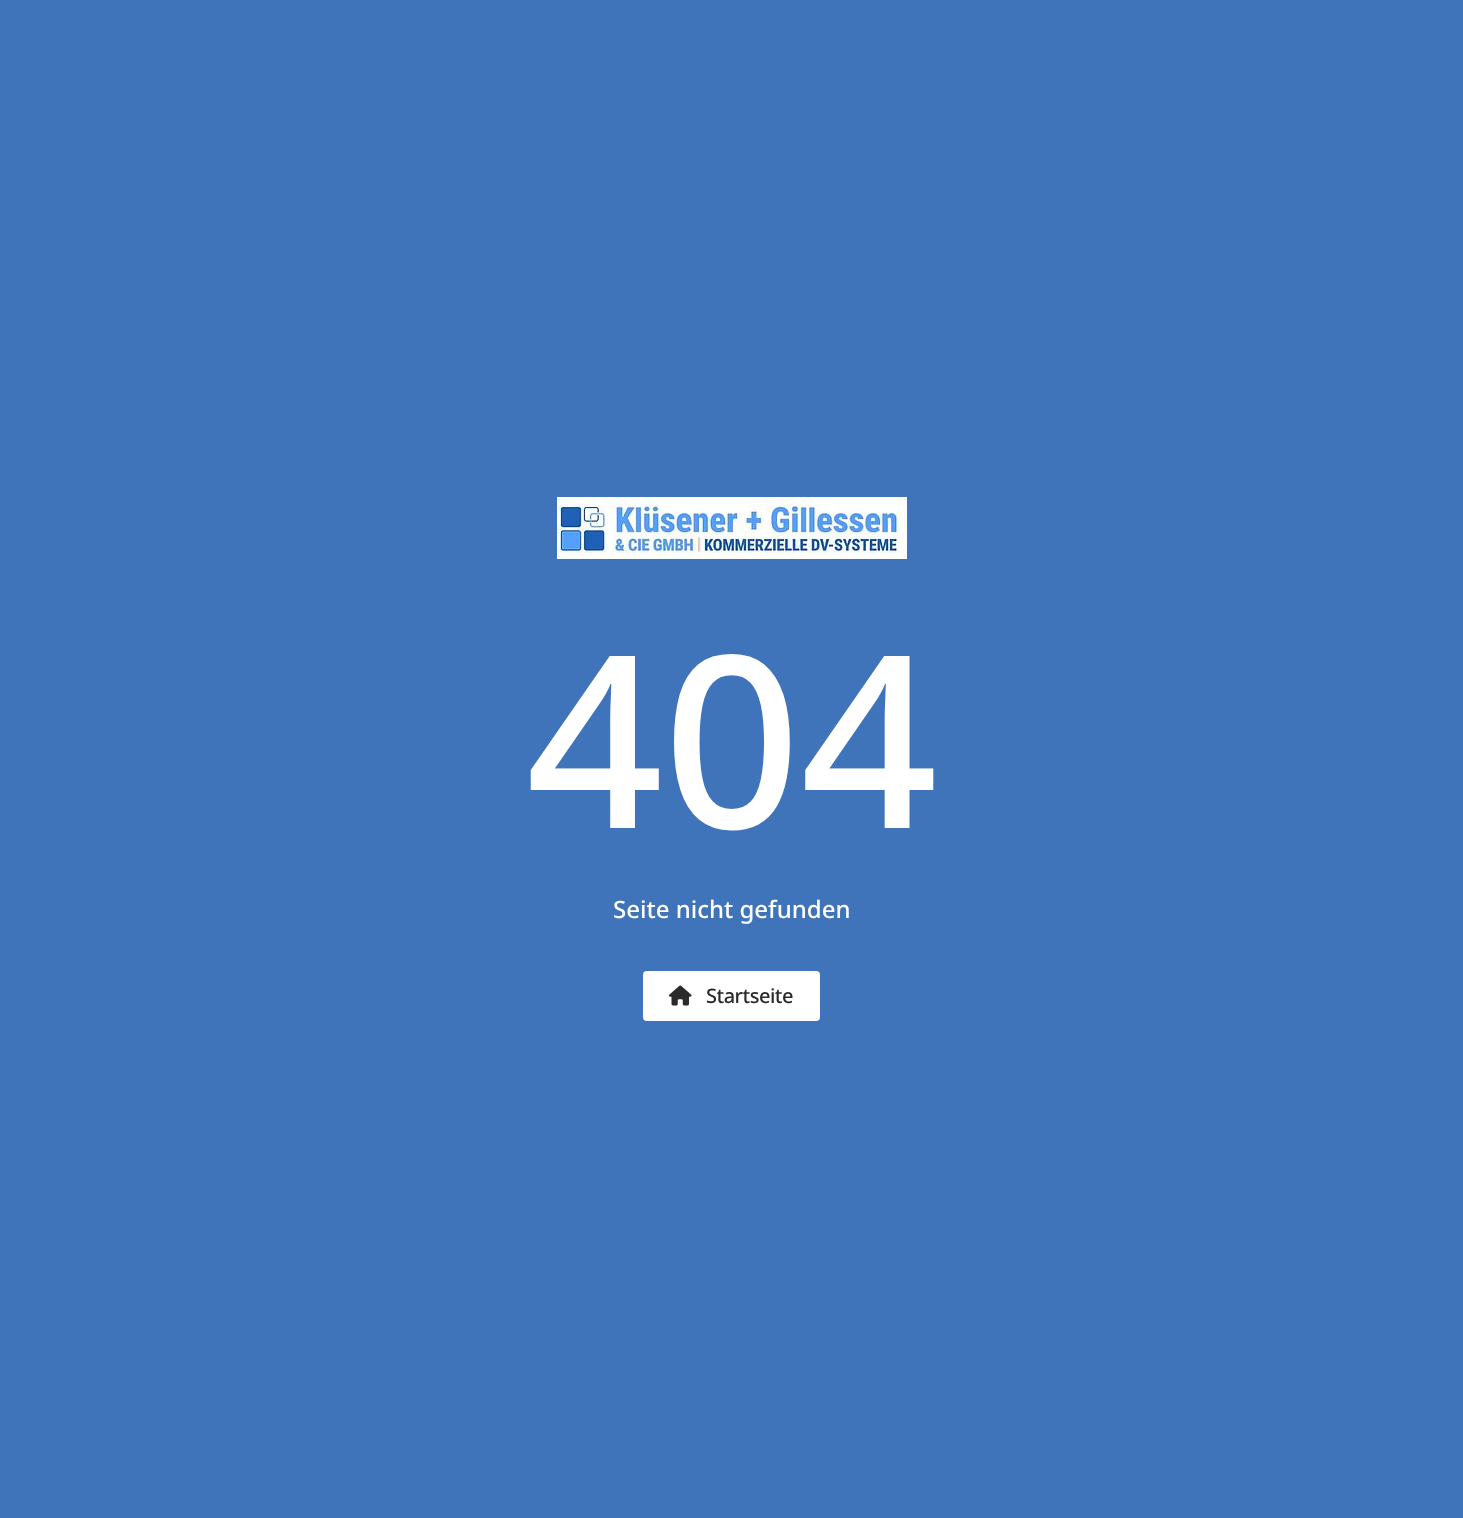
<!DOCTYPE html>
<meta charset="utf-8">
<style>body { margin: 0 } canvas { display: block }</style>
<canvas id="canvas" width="1463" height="1518"></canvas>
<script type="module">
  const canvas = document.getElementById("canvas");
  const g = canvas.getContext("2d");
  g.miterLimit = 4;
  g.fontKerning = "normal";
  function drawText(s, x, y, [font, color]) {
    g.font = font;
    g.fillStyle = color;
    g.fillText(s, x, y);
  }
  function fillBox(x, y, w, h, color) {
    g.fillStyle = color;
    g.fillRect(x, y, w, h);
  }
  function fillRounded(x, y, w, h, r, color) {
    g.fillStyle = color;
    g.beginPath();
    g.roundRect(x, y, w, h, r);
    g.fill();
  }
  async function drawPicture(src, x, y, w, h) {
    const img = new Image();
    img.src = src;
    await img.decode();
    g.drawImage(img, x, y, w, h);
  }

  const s1 = ["500 240px Noto Sans", "#FFFFFF"];
  const s2 = ["500 24px Noto Sans", "#FFFFFF"];
  const s3 = ["500 20px Noto Sans", "#2A2A2A"];

  fillBox(0, 0, 1463, 1518, "#3F74BA");
  await drawPicture("pic1.png", 557, 497, 350, 62);
  drawText("404", 526, 828, s1);
  drawText("Seite nicht gefunden", 613, 918, s2);
  fillRounded(643, 971, 177, 50, 4, "#FFFFFF");
  await drawPicture("pic2.png", 669, 985, 23, 21);
  g.letterSpacing = "-0.5px";
  drawText("Startseite", 706, 1003, s3);
</script>
